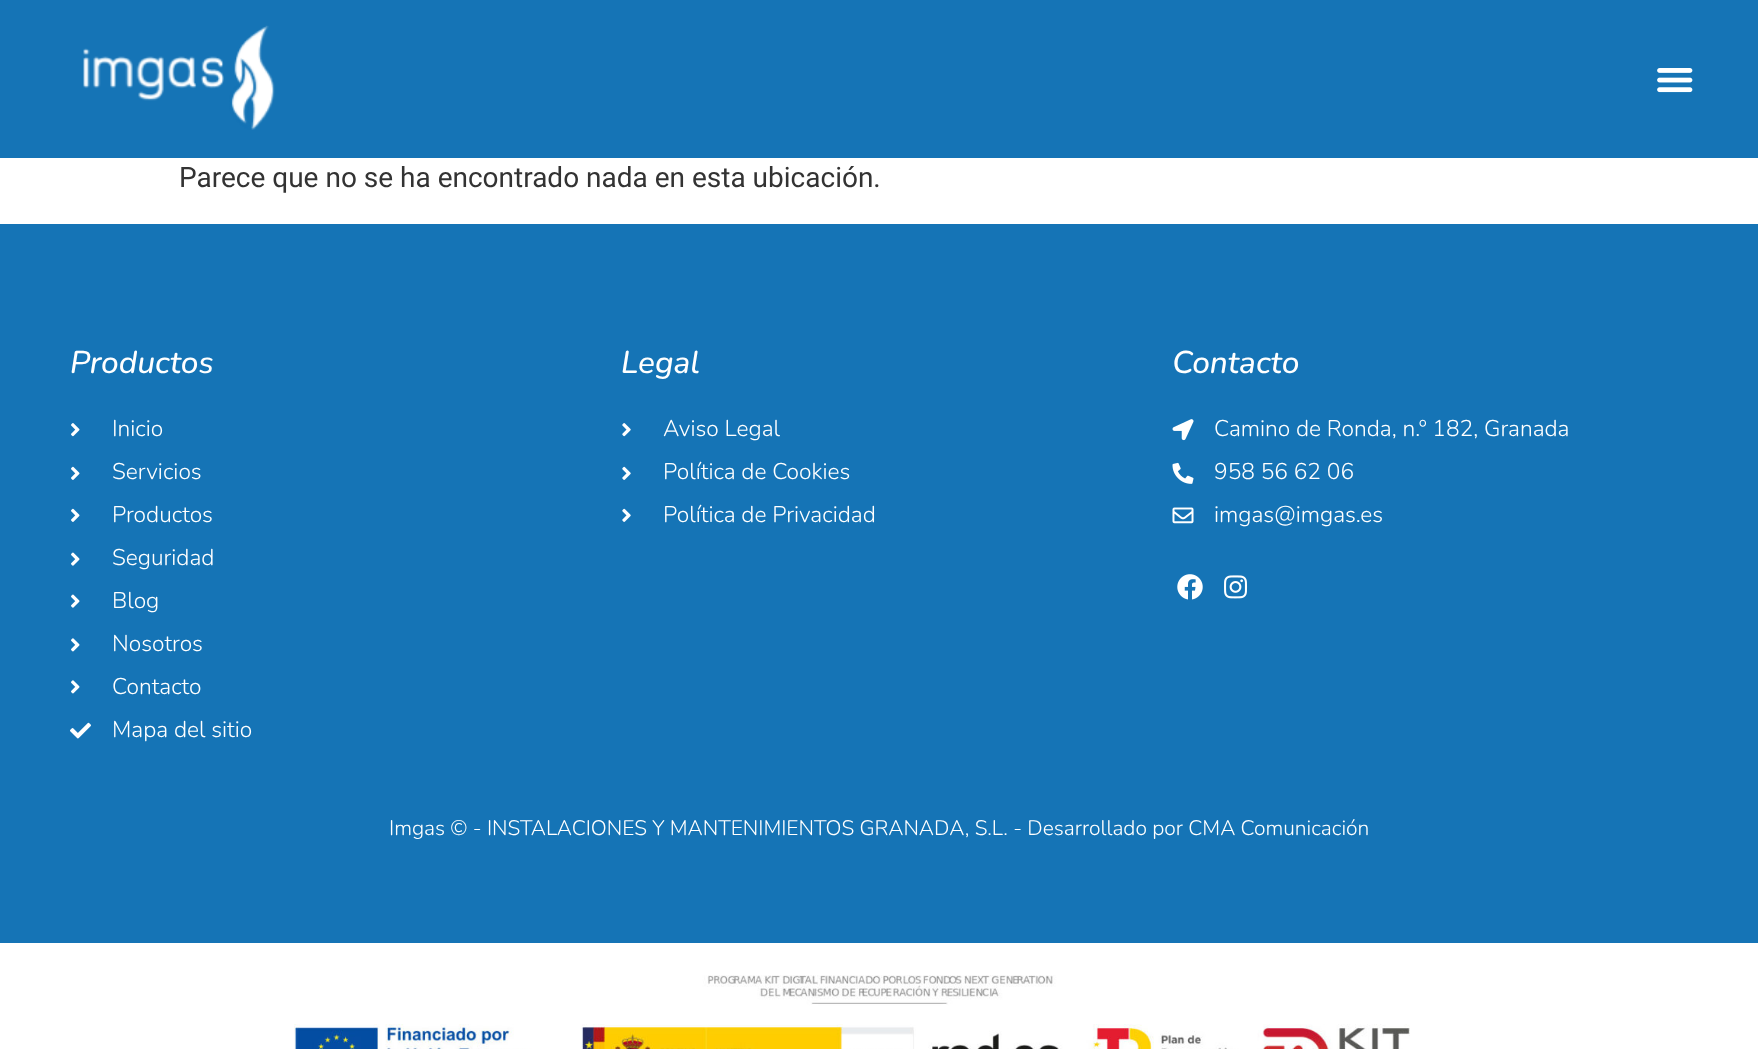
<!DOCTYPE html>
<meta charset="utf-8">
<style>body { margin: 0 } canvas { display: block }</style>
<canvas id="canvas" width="1758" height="1049"></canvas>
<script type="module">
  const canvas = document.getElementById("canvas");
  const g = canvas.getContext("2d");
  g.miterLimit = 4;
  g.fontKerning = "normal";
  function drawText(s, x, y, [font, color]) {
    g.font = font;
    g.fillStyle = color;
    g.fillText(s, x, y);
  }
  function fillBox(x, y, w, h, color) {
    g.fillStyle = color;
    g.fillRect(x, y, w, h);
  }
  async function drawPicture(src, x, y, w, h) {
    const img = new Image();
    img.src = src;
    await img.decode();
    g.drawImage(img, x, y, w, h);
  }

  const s1 = ["28px Roboto", "#333333"];
  const s2 = ["italic 500 31.5px Nunito", "#FFFFFF"];
  const s3 = ["300 22.75px Nunito", "#FFFFFF"];
  const s4 = ["300 21px Nunito", "#FFFFFF"];

  fillBox(0, 0, 1758, 1049, "#FFFFFF");
  fillBox(0, 0, 1758, 158, "#1574B6");
  await drawPicture("pic1.png", 83, 25, 192, 105);
  await drawPicture("pic2.png", 1657, 68, 36, 25);
  drawText("Parece que no se ha encontrado nada en esta ubicación.", 179, 187, s1);
  fillBox(0, 224, 1758, 719, "#1574B6");
  drawText("Productos", 70, 373, s2);
  await drawPicture("pic3.png", 71, 423, 9, 14);
  drawText("Inicio", 112, 436, s3);
  await drawPicture("pic4.png", 71, 466, 9, 14);
  drawText("Servicios", 112, 479, s3);
  await drawPicture("pic4.png", 71, 508, 9, 14);
  drawText("Productos", 112, 522, s3);
  await drawPicture("pic5.png", 71, 552, 9, 14);
  drawText("Seguridad", 112, 565, s3);
  await drawPicture("pic5.png", 71, 594, 9, 14);
  drawText("Blog", 112, 608, s3);
  await drawPicture("pic6.png", 71, 638, 9, 14);
  drawText("Nosotros", 112, 651, s3);
  await drawPicture("pic6.png", 71, 680, 9, 14);
  drawText("Contacto", 112, 694, s3);
  await drawPicture("pic7.png", 70, 722, 21, 17);
  drawText("Mapa del sitio", 112, 737, s3);
  drawText("Legal", 621, 373, s2);
  await drawPicture("pic8.png", 622, 423, 9, 14);
  drawText("Aviso Legal", 663, 436, s3);
  await drawPicture("pic9.png", 622, 466, 9, 14);
  drawText("Política de Cookies", 663, 479, s3);
  await drawPicture("pic9.png", 622, 508, 9, 14);
  drawText("Política de Privacidad", 663, 522, s3);
  drawText("Contacto", 1172, 373, s2);
  await drawPicture("pic10.png", 1172, 419, 22, 22);
  drawText("Camino de Ronda, n.º 182, Granada", 1214, 436, s3);
  await drawPicture("pic11.png", 1172, 462, 22, 22);
  drawText("958 56 62 06", 1214, 479, s3);
  await drawPicture("pic12.png", 1172, 507, 22, 17);
  drawText("imgas@imgas.es", 1214, 522, s3);
  await drawPicture("pic13.png", 1177, 574, 26, 26);
  await drawPicture("pic14.png", 1224, 575, 24, 24);
  drawText("Imgas © - INSTALACIONES Y MANTENIMIENTOS GRANADA, S.L. - Desarrollado por CMA Comunicación", 389, 835, s4);
  await drawPicture("pic15.png", 294, 975, 1116, 74);
</script>
